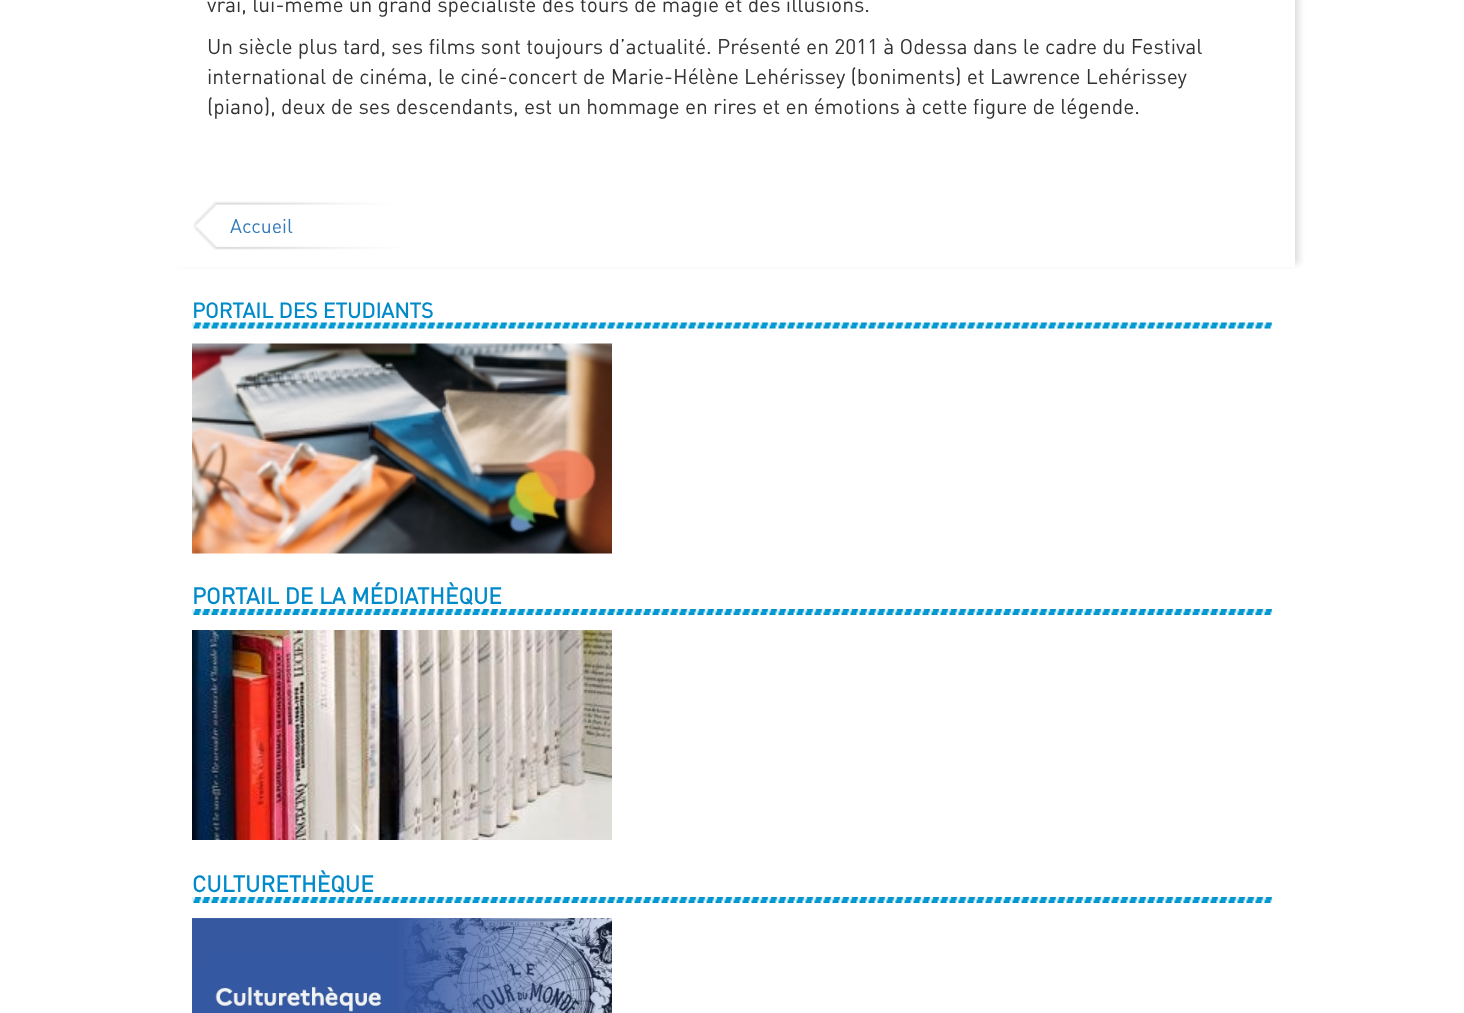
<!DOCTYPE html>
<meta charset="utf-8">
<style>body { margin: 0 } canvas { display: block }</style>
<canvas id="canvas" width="1464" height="1013"></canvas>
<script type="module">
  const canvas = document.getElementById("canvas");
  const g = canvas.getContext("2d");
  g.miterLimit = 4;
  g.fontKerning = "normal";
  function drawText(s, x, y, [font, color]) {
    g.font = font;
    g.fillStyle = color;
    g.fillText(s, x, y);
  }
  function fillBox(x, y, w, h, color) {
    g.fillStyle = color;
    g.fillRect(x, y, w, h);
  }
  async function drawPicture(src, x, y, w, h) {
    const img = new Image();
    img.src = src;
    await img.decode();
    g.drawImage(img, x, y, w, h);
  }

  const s1 = ["21px DIN", "#333333"];
  const s2 = ["19.5px DIN", "#337AB7"];
  const s3 = ["bold 21px DIN", "#008AC9"];
  const s4 = ["bold 22.5px DIN", "#008AC9"];

  fillBox(0, 0, 1464, 1013, "#FFFFFF");
  g.save();
  g.beginPath();
  g.moveTo(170, 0);
  g.lineTo(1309, 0);
  g.lineTo(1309, 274);
  g.lineTo(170, 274);
  g.closePath();
  g.moveTo(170, -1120);
  g.lineTo(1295, -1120);
  g.lineTo(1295, 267);
  g.lineTo(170, 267);
  g.closePath();
  g.clip("evenodd");
  g.fillStyle = "rgba(168, 168, 168, 0.38)";
  g.filter = "blur(3px)";
  g.beginPath();
  g.rect(180, -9, 1119, 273);
  g.fill();
  g.filter = "none";
  g.restore();
  drawText("vrai, lui-même un grand spécialiste des tours de magie et des illusions.", 207, 12, s1);
  drawText("Un siècle plus tard, ses films sont toujours d’actualité. Présenté en 2011 à Odessa dans le cadre du Festival", 207, 54, s1);
  drawText("international de cinéma, le ciné-concert de Marie-Hélène Lehérissey (boniments) et Lawrence Lehérissey", 207, 84, s1);
  drawText("(piano), deux de ses descendants, est un hommage en rires et en émotions à cette figure de légende.", 207, 114, s1);
  await drawPicture("pic1.png", 193, 201, 205, 49);
  drawText("Accueil", 230, 233, s2);
  await drawPicture("pic2.png", 192, 322, 1080, 7);
  drawText("PORTAIL DES ETUDIANTS", 192, 318, s3);
  await drawPicture("pic3.png", 192, 343, 420, 211);
  await drawPicture("pic4.png", 192, 609, 1080, 6);
  drawText("PORTAIL DE LA MÉDIATHÈQUE", 192, 604, s4);
  await drawPicture("pic5.png", 192, 630, 420, 210);
  await drawPicture("pic6.png", 192, 897, 1080, 6);
  drawText("CULTURETHÈQUE", 192, 892, s4);
  await drawPicture("pic7.png", 192, 918, 420, 95);
</script>
